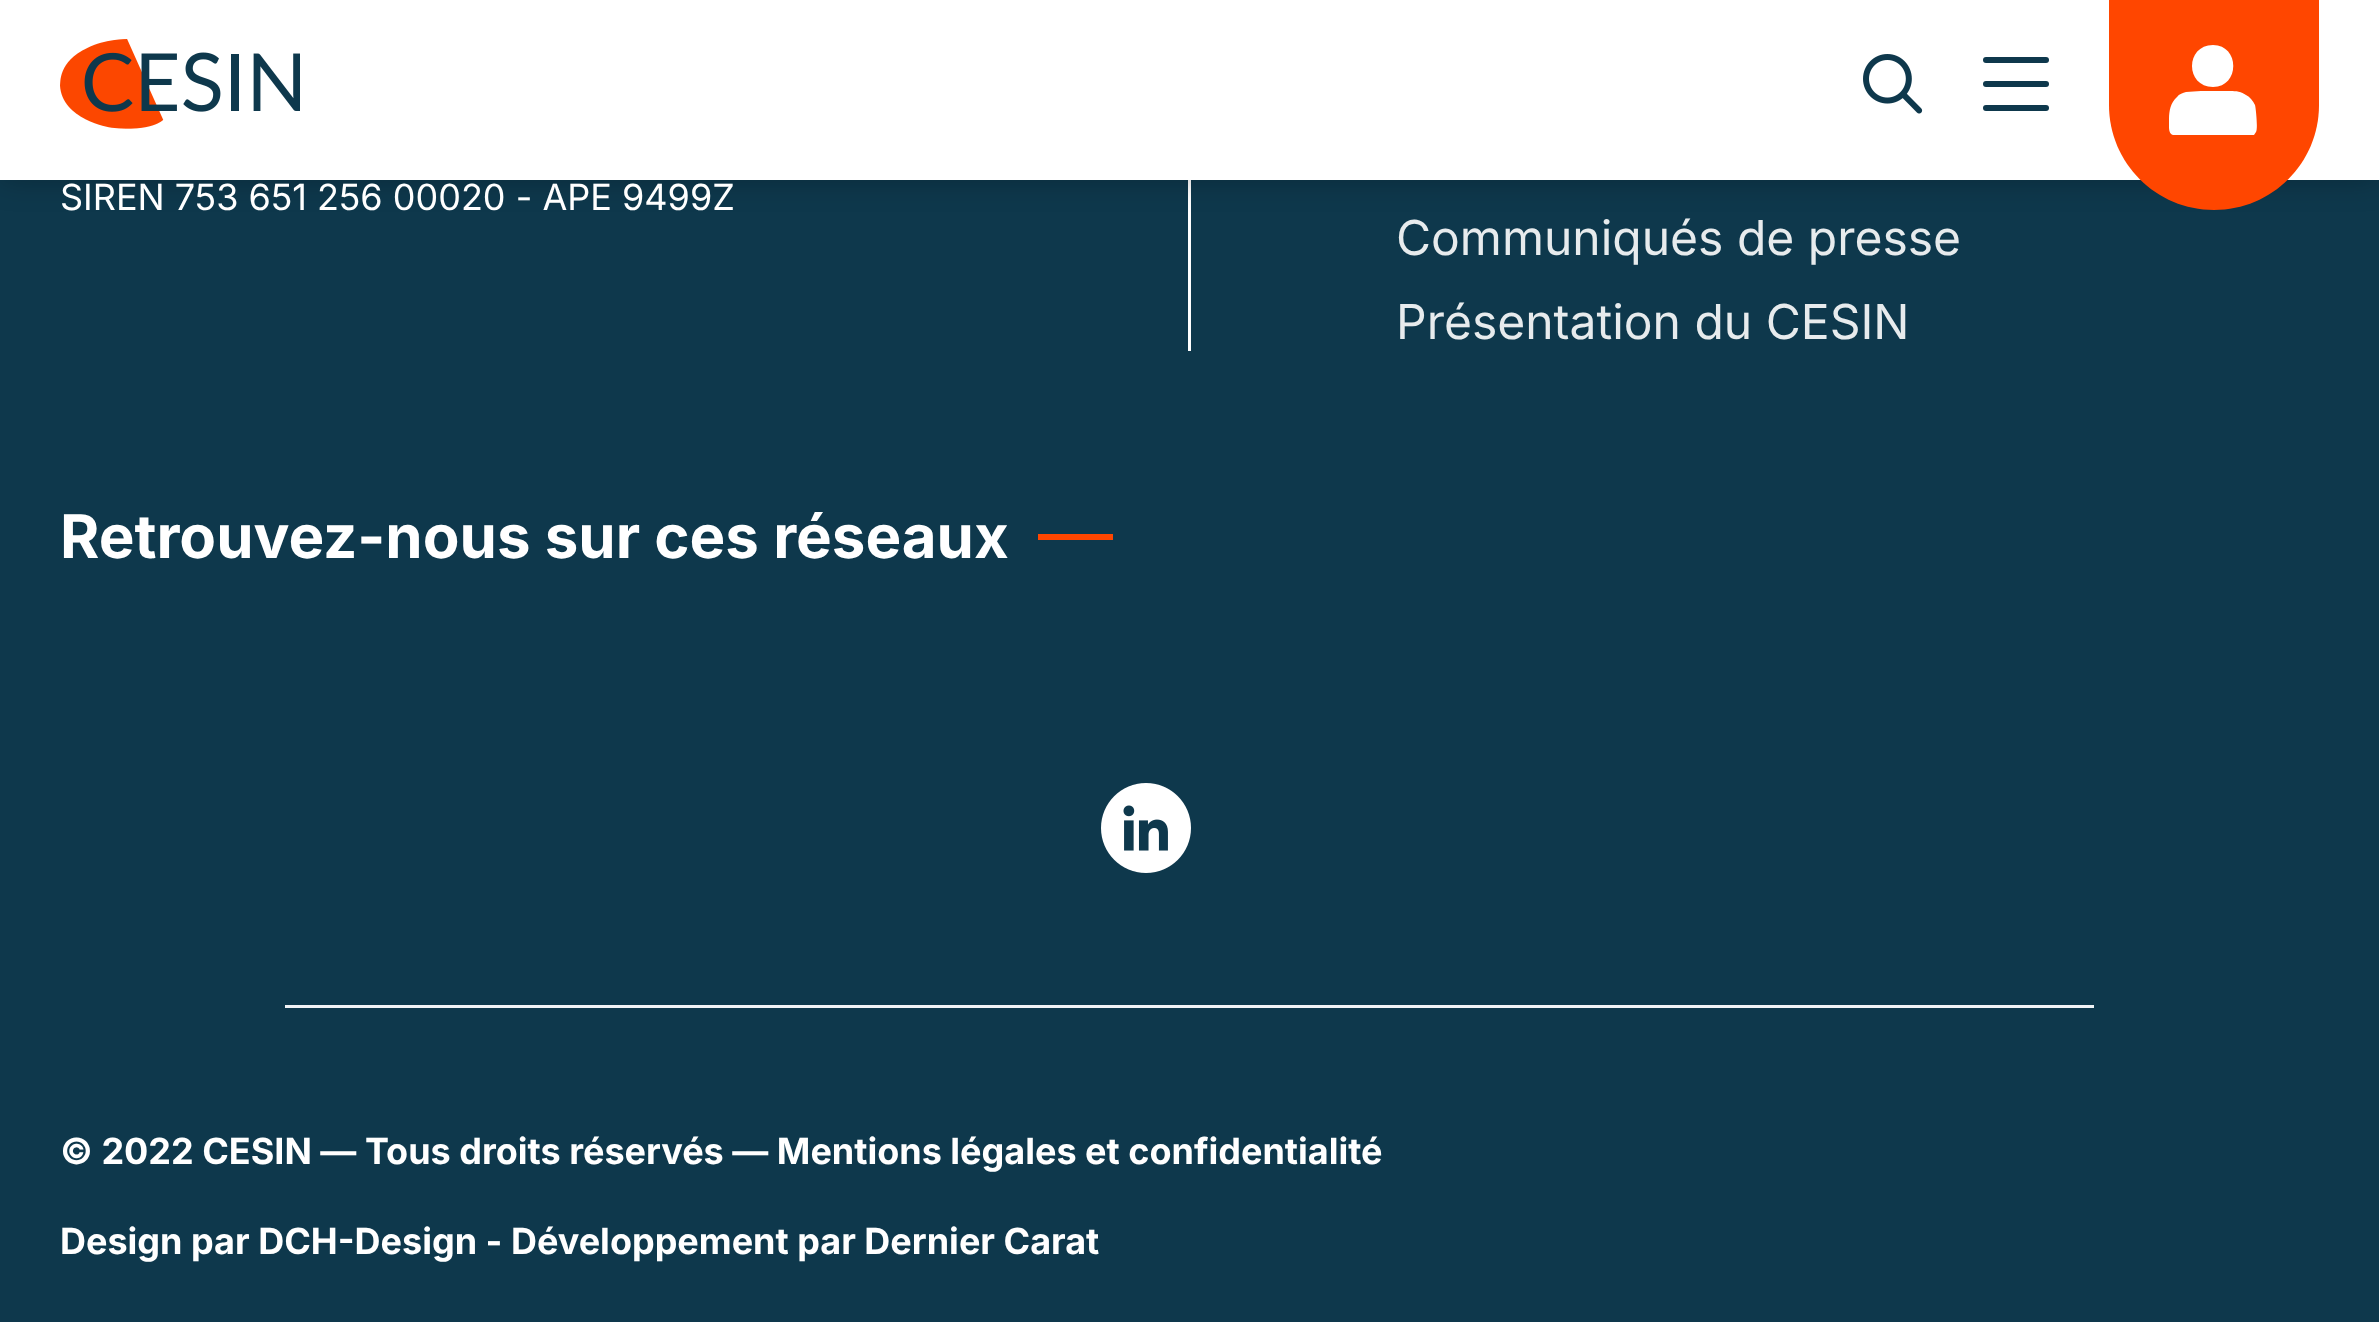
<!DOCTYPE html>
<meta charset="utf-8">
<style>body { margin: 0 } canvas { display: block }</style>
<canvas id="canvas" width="2379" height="1322"></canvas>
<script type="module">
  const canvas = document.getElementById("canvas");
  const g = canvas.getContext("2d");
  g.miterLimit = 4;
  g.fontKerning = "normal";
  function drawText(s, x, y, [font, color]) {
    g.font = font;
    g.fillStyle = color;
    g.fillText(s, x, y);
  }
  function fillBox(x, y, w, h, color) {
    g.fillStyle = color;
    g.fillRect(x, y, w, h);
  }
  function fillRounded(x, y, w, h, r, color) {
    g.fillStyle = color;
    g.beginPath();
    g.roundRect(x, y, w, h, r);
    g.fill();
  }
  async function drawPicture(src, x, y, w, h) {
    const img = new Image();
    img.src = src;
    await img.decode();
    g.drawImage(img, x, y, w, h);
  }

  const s1 = ["36px Inter", "#FFFFFF"];
  const s2 = ["48px Inter", "#E7EBED"];
  const s3 = ["bold 60px Inter", "#FFFFFF"];
  const s4 = ["bold 36px Inter", "#FFFFFF"];

  fillBox(0, 0, 2379, 1322, "#0E384C");
  fillBox(1188, 180, 3, 171, "#FFFFFF");
  g.fillStyle = "rgba(0, 0, 0, 0.25)";
  g.filter = "blur(15px)";
  g.beginPath();
  g.rect(0, 0, 2379, 180);
  g.fill();
  g.filter = "none";
  fillBox(0, 0, 2379, 180, "#FFFFFF");
  await drawPicture("pic1.png", 60, 39, 240, 90);
  await drawPicture("pic2.png", 1863, 54, 60, 60);
  fillRounded(1983, 57, 66, 6, 3, "#0E384C");
  fillRounded(1983, 81, 66, 6, 3, "#0E384C");
  g.beginPath();
  g.moveTo(1983, 108);
  g.bezierCurveTo(1983, 106, 1984, 105, 1986, 105);
  g.lineTo(2046, 105);
  g.bezierCurveTo(2048, 105, 2049, 106, 2049, 108);
  g.bezierCurveTo(2049, 110, 2048, 111, 2046, 111);
  g.lineTo(1986, 111);
  g.bezierCurveTo(1984, 111, 1983, 110, 1983, 108);
  g.closePath();
  g.fill();
  g.fillStyle = "#FF4600";
  g.beginPath();
  g.moveTo(2109, -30);
  g.lineTo(2319, -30);
  g.lineTo(2319, 105);
  g.bezierCurveTo(2319, 163, 2272, 210, 2214, 210);
  g.bezierCurveTo(2156, 210, 2109, 163, 2109, 105);
  g.closePath();
  g.fill();
  g.fillStyle = "#FFFFFF";
  g.beginPath();
  g.moveTo(2213, 87);
  g.bezierCurveTo(2240, 87, 2240, 45, 2213, 45);
  g.bezierCurveTo(2185, 45, 2185, 87, 2213, 87);
  g.closePath();
  g.fill();
  g.save();
  g.beginPath();
  g.rect(2169, 45, 90, 90);
  g.clip();
  g.beginPath();
  g.moveTo(2224, 91);
  g.lineTo(2201, 91);
  g.lineTo(2186, 92);
  g.bezierCurveTo(2183, 93, 2179, 94, 2177, 97);
  g.bezierCurveTo(2168, 105, 2169, 117, 2169, 127);
  g.bezierCurveTo(2169, 138, 2176, 135, 2186, 135);
  g.lineTo(2254, 135);
  g.lineTo(2256, 132);
  g.bezierCurveTo(2258, 129, 2256, 109, 2255, 105);
  g.bezierCurveTo(2253, 101, 2250, 97, 2246, 95);
  g.bezierCurveTo(2240, 90, 2231, 91, 2224, 91);
  g.closePath();
  g.fill();
  g.restore();
  drawText("SIREN 753 651 256 00020 - APE 9499Z", 60, 210, s1);
  drawText("Communiqués de presse", 1396, 255, s2);
  drawText("Présentation du CESIN", 1396, 339, s2);
  drawText("Retrouvez-nous sur ces réseaux", 60, 558, s3);
  fillBox(1038, 534, 75, 6, "#FF4600");
  await drawPicture("pic3.png", 1101, 783, 90, 90);
  fillBox(285, 1005, 1809, 3, "#F0F3F6");
  drawText("© 2022 CESIN — Tous droits réservés — Mentions légales et confidentialité", 60, 1164, s4);
  drawText("Design par DCH-Design - Développement par Dernier Carat", 60, 1254, s4);
</script>
